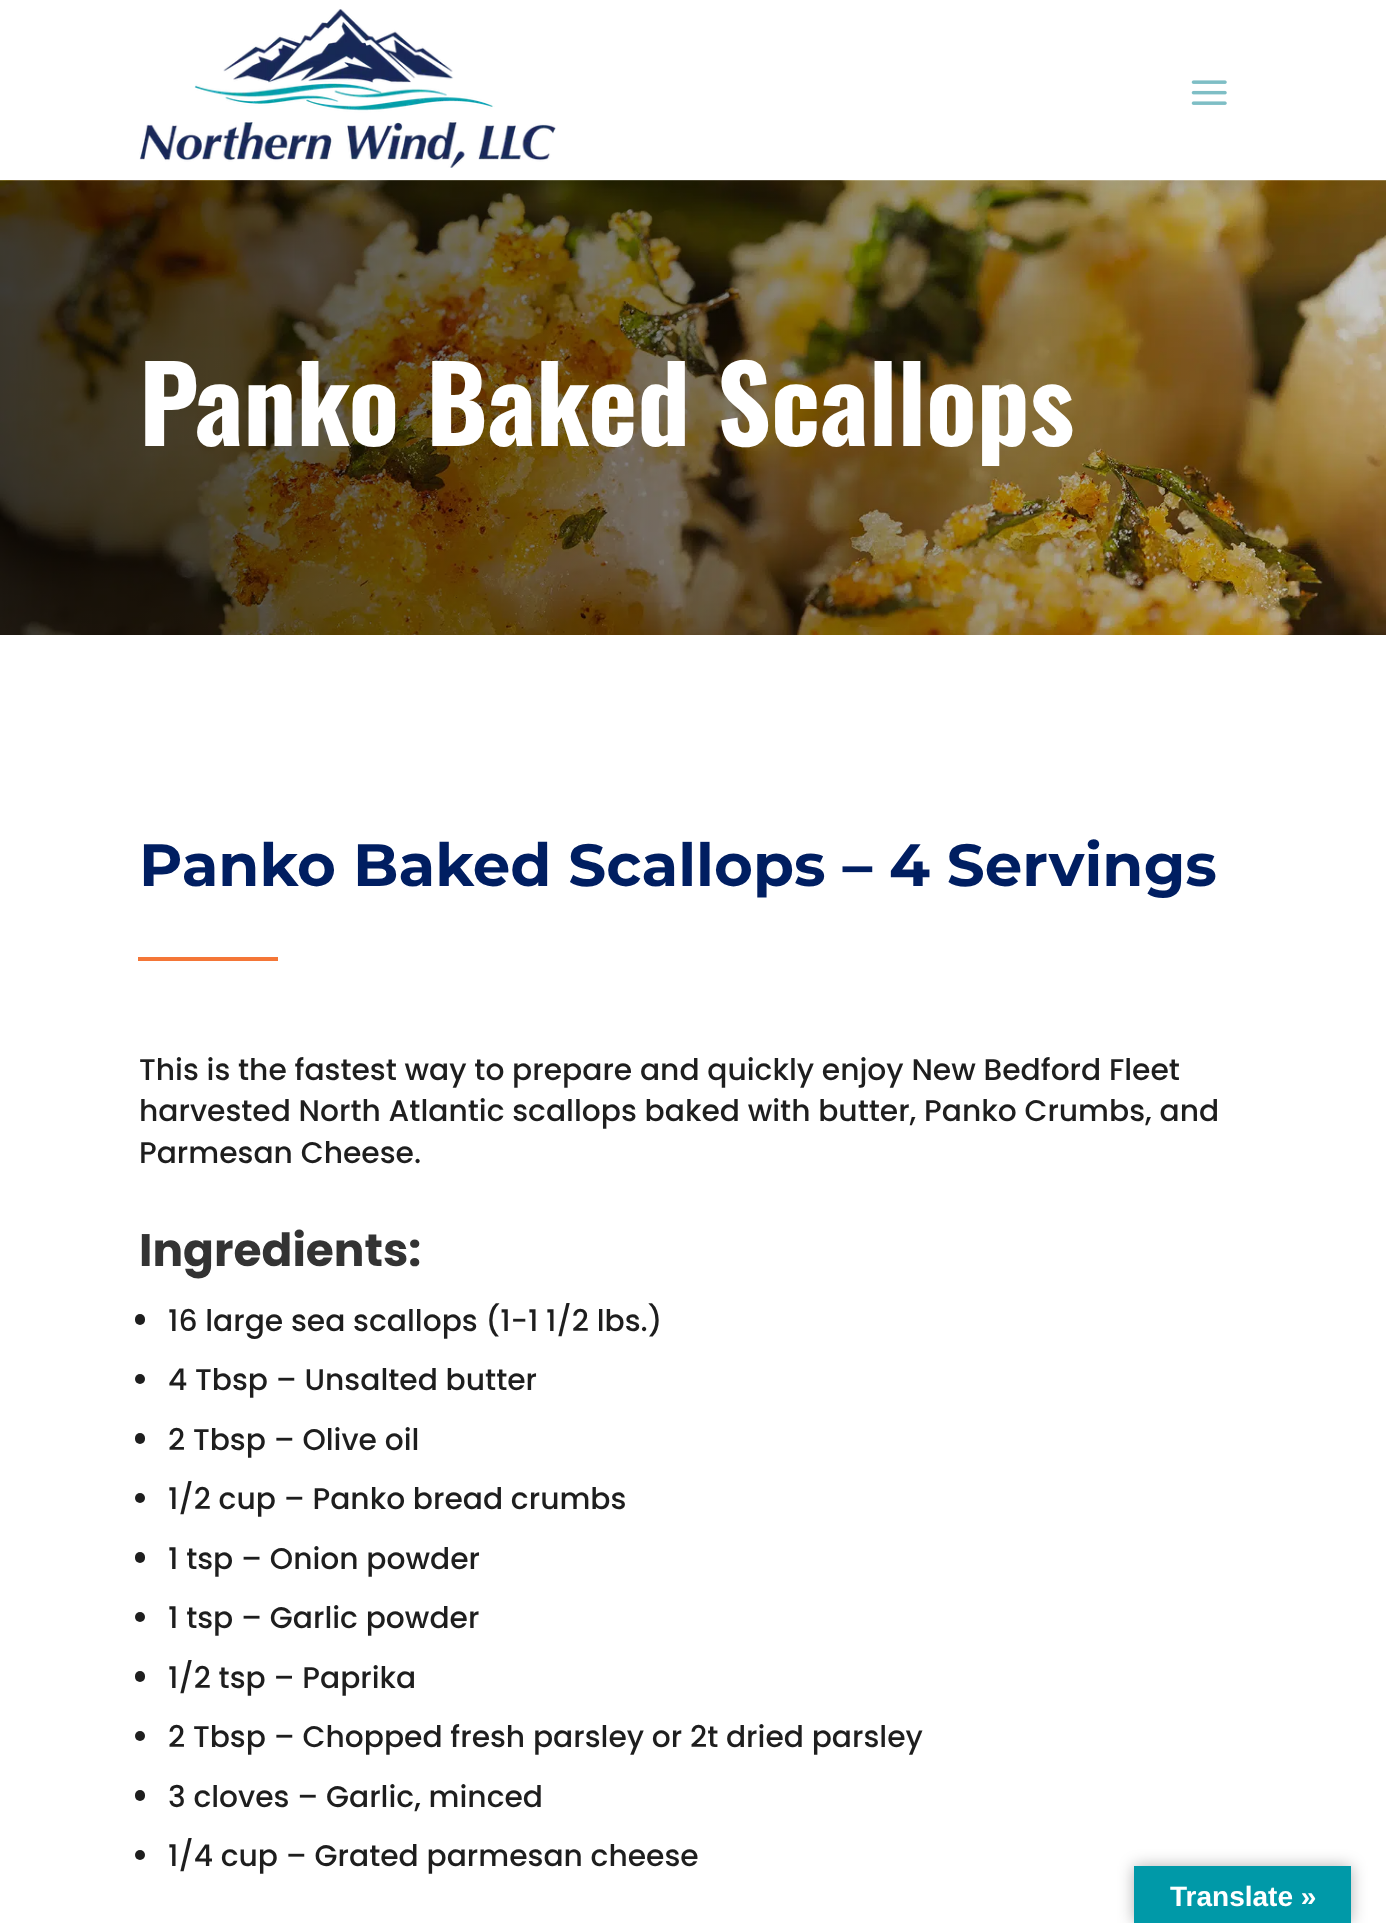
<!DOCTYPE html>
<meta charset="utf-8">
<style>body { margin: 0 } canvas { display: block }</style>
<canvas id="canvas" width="1386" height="1923"></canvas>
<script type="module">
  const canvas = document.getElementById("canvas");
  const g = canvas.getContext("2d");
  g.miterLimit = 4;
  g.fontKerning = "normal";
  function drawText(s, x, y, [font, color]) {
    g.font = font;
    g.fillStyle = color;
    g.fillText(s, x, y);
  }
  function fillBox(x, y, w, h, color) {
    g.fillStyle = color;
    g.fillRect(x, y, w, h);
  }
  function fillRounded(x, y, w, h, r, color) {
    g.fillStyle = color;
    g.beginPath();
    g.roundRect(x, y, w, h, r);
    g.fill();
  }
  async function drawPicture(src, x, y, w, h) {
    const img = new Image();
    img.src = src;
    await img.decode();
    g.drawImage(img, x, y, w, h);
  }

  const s1 = ["bold 105px Oswald", "#FFFFFF"];
  const s2 = ["bold 59.5px Montserrat", "#001E61"];
  const s3 = ["500 29.75px Poppins", "#1E1E1E"];
  const s4 = ["bold 45.5px Poppins", "#333333"];
  const s5 = ["bold 28px Liberation Sans", "#FFFFFF"];

  fillBox(0, 0, 1386, 1923, "#FFFFFF");
  await drawPicture("pic1.png", 139, 9, 417, 159);
  await drawPicture("pic2.png", 1191, 80, 36, 25);
  await drawPicture("pic3.png", 0, 180, 1386, 455);
  drawText("Panko Baked Scallops", 139, 446, s1);
  drawText("Panko Baked Scallops – 4 Servings", 139, 886, s2);
  fillBox(138, 957, 140, 4, "#F47637");
  drawText("This is the fastest way to prepare and quickly enjoy New Bedford Fleet", 139, 1080, s3);
  drawText("harvested North Atlantic scallops baked with butter, Panko Crumbs, and", 139, 1121, s3);
  drawText("Parmesan Cheese.", 139, 1163, s3);
  drawText("Ingredients:", 139, 1266, s4);
  fillRounded(135, 1314, 10, 11, 5, "#1E1E1E");
  drawText("16 large sea scallops (1-1 1/2 lbs.)", 168, 1331, s3);
  g.beginPath();
  g.arc(140, 1379, 5, 0, Math.PI * 2);
  g.fill();
  drawText("4 Tbsp – Unsalted butter", 168, 1390, s3);
  fillRounded(135, 1433, 10, 11, 5, "#1E1E1E");
  drawText("2 Tbsp – Olive oil", 168, 1450, s3);
  g.beginPath();
  g.arc(140, 1498, 5, 0, Math.PI * 2);
  g.fill();
  drawText("1/2 cup – Panko bread crumbs", 168, 1509, s3);
  fillRounded(135, 1552, 10, 11, 5, "#1E1E1E");
  drawText("1 tsp – Onion powder", 168, 1569, s3);
  g.beginPath();
  g.arc(140, 1617, 5, 0, Math.PI * 2);
  g.fill();
  drawText("1 tsp – Garlic powder", 168, 1628, s3);
  fillRounded(135, 1671, 10, 11, 5, "#1E1E1E");
  drawText("1/2 tsp – Paprika", 168, 1688, s3);
  g.beginPath();
  g.arc(140, 1736, 5, 0, Math.PI * 2);
  g.fill();
  drawText("2 Tbsp – Chopped fresh parsley or 2t dried parsley", 168, 1747, s3);
  fillRounded(135, 1790, 10, 11, 5, "#1E1E1E");
  drawText("3 cloves – Garlic, minced", 168, 1807, s3);
  g.beginPath();
  g.arc(140, 1855, 5, 0, Math.PI * 2);
  g.fill();
  drawText("1/4 cup – Grated parmesan cheese", 168, 1866, s3);
  g.fillStyle = "rgba(0, 0, 0, 0.3)";
  g.filter = "blur(8px)";
  g.beginPath();
  g.rect(1134, 1866, 217, 57);
  g.fill();
  g.filter = "none";
  fillBox(1134, 1866, 217, 57, "#0099A8");
  drawText("Translate »", 1170, 1906, s5);
</script>
